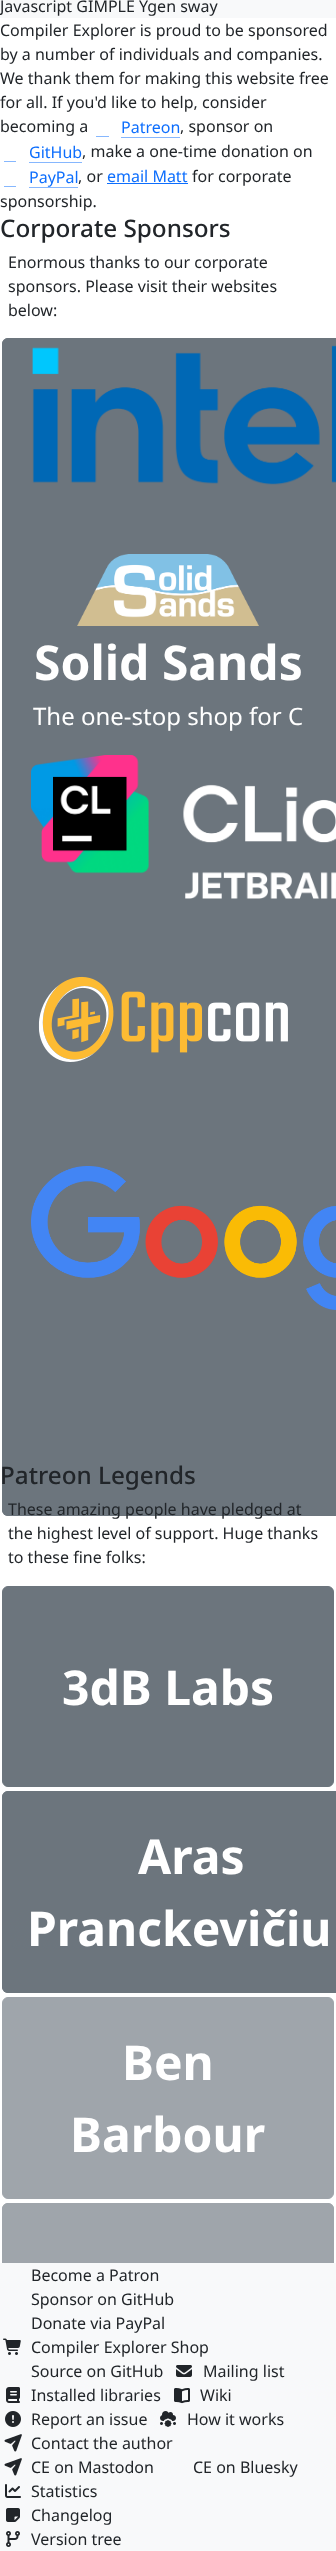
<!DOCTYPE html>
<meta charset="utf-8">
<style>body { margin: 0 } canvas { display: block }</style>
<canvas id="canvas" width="336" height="2551"></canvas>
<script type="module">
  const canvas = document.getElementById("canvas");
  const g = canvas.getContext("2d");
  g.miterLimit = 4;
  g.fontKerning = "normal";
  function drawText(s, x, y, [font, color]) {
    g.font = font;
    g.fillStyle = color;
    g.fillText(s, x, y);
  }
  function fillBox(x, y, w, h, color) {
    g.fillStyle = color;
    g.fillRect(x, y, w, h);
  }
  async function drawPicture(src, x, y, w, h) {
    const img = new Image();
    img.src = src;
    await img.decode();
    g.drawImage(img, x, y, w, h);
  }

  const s1 = ["16px Noto Sans", "#212529"];
  const s2 = ["16px Noto Sans", "#0D6EFD"];
  const s3 = ["500 24.25px Noto Sans", "#212529"];
  const s4 = ["bold 48px Noto Sans", "#FFFFFF"];
  const s5 = ["24px Noto Sans", "#FFFFFF"];

  fillBox(0, 0, 336, 2551, "#FFFFFF");
  fillBox(0, 0, 336, 18, "#F8F9FA");
  drawText("Javascript GIMPLE Ygen sway", 0, 12, s1);
  drawText("Compiler Explorer is proud to be sponsored", 0, 36, s1);
  drawText("by a number of individuals and companies.", 0, 60, s1);
  drawText("We thank them for making this website free", 0, 84, s1);
  drawText("for all. If you'd like to help, consider", 0, 108, s1);
  drawText("becoming a", 0, 132, s1);
  drawText("Patreon", 121, 133, s2);
  fillBox(121, 137, 59, 1, "#86B7FE");
  fillBox(96, 136, 13, 1, "#86B7FE");
  drawText(", sponsor on", 180, 132, s1);
  drawText("GitHub", 29, 158, s2);
  fillBox(29, 162, 53, 1, "#86B7FE");
  fillBox(4, 161, 12, 1, "#86B7FE");
  drawText(", make a one-time donation on", 82, 157, s1);
  fillBox(4, 186, 12, 1, "#86B7FE");
  drawText("PayPal", 29, 183, s2);
  fillBox(29, 187, 49, 1, "#86B7FE");
  drawText(", or", 78, 182, s1);
  drawText("email Matt", 107, 182, s2);
  fillBox(107, 183, 81, 1, "#0D6EFD");
  drawText("for corporate", 192, 182, s1);
  drawText("sponsorship.", 0, 207, s1);
  drawText("Corporate Sponsors", 0, 237, s3);
  drawText("Enormous thanks to our corporate", 8, 268, s1);
  drawText("sponsors. Please visit their websites", 8, 292, s1);
  drawText("below:", 8, 316, s1);
  g.fillStyle = "#6C757D";
  g.beginPath();
  g.roundRect(2, 338, 334, 550, [6, 0, 0, 6]);
  g.fill();
  g.beginPath();
  g.roundRect(2.5, 338.5, 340, 549, 5.5);
  g.strokeStyle = "#6C757D";
  g.stroke();
  await drawPicture("pic1.png", 32, 345, 304, 140);
  await drawPicture("pic2.png", 77, 554, 182, 72);
  drawText("Solid Sands", 34, 680, s4);
  drawText("The one-stop shop for C", 33, 725, s5);
  g.fillStyle = "#6C757D";
  g.beginPath();
  g.roundRect(2, 750, 334, 766, [6, 0, 0, 6]);
  g.fill();
  g.beginPath();
  g.roundRect(2.5, 750.5, 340, 765, 5.5);
  g.stroke();
  await drawPicture("pic3.png", 31, 755, 305, 144);
  await drawPicture("pic4.png", 38, 976, 250, 86);
  await drawPicture("pic5.png", 31, 1166, 305, 144);
  drawText("Patreon Legends", 0, 1484, s3);
  drawText("These amazing people have pledged at", 8, 1515, s1);
  drawText("the highest level of support. Huge thanks", 8, 1539, s1);
  drawText("to these fine folks:", 8, 1563, s1);
  g.fillStyle = "#6C757D";
  g.beginPath();
  g.roundRect(2.5, 1586.5, 331, 200, 5.5);
  g.fill();
  g.stroke();
  drawText("3dB Labs", 62, 1705, s4);
  g.fillStyle = "#6C757D";
  g.beginPath();
  g.roundRect(2, 1791, 334, 202, [6, 0, 0, 6]);
  g.fill();
  g.beginPath();
  g.roundRect(2.5, 1791.5, 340, 201, 5.5);
  g.stroke();
  drawText("Aras", 138, 1874, s4);
  drawText("Pranckevičiu", 27, 1946, s4);
  g.fillStyle = "#9FA5AB";
  g.beginPath();
  g.roundRect(2.5, 1997.5, 331, 201, 5.5);
  g.fill();
  g.strokeStyle = "#9FA5AB";
  g.stroke();
  drawText("Ben", 122, 2080, s4);
  drawText("Barbour", 70, 2152, s4);
  g.fillStyle = "#9FA5AB";
  g.beginPath();
  g.roundRect(2, 2203, 332, 60, [6, 6, 0, 0]);
  g.fill();
  fillBox(0, 2263, 336, 288, "#F8F9FA");
  await drawPicture("pic6.png", 3, 2338, 18, 17);
  await drawPicture("pic7.png", 176, 2365, 16, 12);
  await drawPicture("pic8.png", 6, 2387, 14, 16);
  await drawPicture("pic9.png", 174, 2388, 16, 16);
  g.save();
  g.beginPath();
  g.rect(0, 18, 336, 2245);
  g.clip();
  g.beginPath();
  g.roundRect(2.5, 2203.5, 331, 200, 5.5);
  g.stroke();
  g.restore();
  drawText("Become a Patron", 31, 2281, s1);
  drawText("Sponsor on GitHub", 31, 2305, s1);
  drawText("Donate via PayPal", 31, 2329, s1);
  drawText("Compiler Explorer Shop", 31, 2353, s1);
  drawText("Source on GitHub", 31, 2377, s1);
  drawText("Mailing list", 203, 2377, s1);
  drawText("Installed libraries", 31, 2401, s1);
  drawText("Wiki", 200, 2401, s1);
  await drawPicture("pic10.png", 5, 2411, 16, 16);
  drawText("Report an issue", 31, 2425, s1);
  await drawPicture("pic11.png", 160, 2411, 16, 16);
  drawText("How it works", 187, 2425, s1);
  await drawPicture("pic12.png", 4, 2434, 18, 18);
  drawText("Contact the author", 31, 2449, s1);
  await drawPicture("pic12.png", 4, 2458, 18, 18);
  drawText("CE on Mastodon", 31, 2473, s1);
  drawText("CE on Bluesky", 193, 2473, s1);
  await drawPicture("pic13.png", 5, 2484, 16, 14);
  drawText("Statistics", 31, 2497, s1);
  await drawPicture("pic14.png", 6, 2508, 14, 14);
  drawText("Changelog", 31, 2521, s1);
  await drawPicture("pic15.png", 6, 2531, 14, 16);
  drawText("Version tree", 31, 2545, s1);
</script>
